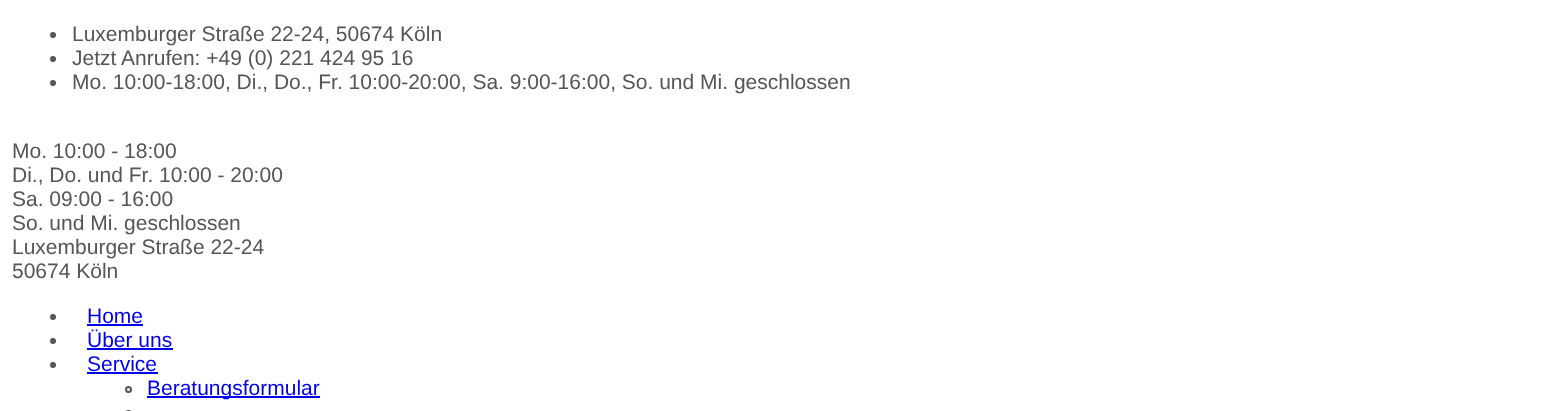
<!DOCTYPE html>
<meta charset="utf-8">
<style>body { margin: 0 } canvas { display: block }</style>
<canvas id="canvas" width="1551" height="411"></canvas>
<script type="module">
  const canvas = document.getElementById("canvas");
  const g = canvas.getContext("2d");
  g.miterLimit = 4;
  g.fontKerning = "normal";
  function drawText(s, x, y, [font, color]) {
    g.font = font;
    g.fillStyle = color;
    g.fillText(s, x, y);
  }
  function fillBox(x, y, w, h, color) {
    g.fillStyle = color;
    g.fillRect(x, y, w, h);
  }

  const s1 = ["21px Liberation Sans", "#555555"];
  const s2 = ["21px Liberation Sans", "#0000EE"];

  fillBox(0, 0, 1551, 411, "#FFFFFF");
  g.fillStyle = "#555555";
  g.beginPath();
  g.arc(53, 35, 3, 0, Math.PI * 2);
  g.fill();
  drawText("Luxemburger Straße 22-24, 50674 Köln", 72, 41, s1);
  g.beginPath();
  g.arc(53, 59, 3, 0, Math.PI * 2);
  g.fill();
  drawText("Jetzt Anrufen: +49 (0) 221 424 95 16", 72, 65, s1);
  g.beginPath();
  g.arc(53, 83, 3, 0, Math.PI * 2);
  g.fill();
  drawText("Mo. 10:00-18:00, Di., Do., Fr. 10:00-20:00, Sa. 9:00-16:00, So. und Mi. geschlossen", 72, 89, s1);
  drawText("Mo. 10:00 - 18:00", 12, 158, s1);
  drawText("Di., Do. und Fr. 10:00 - 20:00", 12, 182, s1);
  drawText("Sa. 09:00 - 16:00", 12, 206, s1);
  drawText("So. und Mi. geschlossen", 12, 230, s1);
  drawText("Luxemburger Straße 22-24", 12, 254, s1);
  drawText("50674 Köln", 12, 278, s1);
  g.beginPath();
  g.arc(53, 317, 3, 0, Math.PI * 2);
  g.fill();
  drawText("Home", 87, 323, s2);
  fillBox(87, 324, 56, 2, "#0000EE");
  g.fillStyle = "#555555";
  g.beginPath();
  g.arc(53, 341, 3, 0, Math.PI * 2);
  g.fill();
  drawText("Über uns", 87, 347, s2);
  fillBox(87, 348, 86, 2, "#0000EE");
  g.fillStyle = "#555555";
  g.beginPath();
  g.arc(53, 365, 3, 0, Math.PI * 2);
  g.fill();
  drawText("Service", 87, 371, s2);
  fillBox(87, 372, 71, 2, "#0000EE");
  g.beginPath();
  g.arc(128.5, 389.5, 2.5, 0, Math.PI * 2);
  g.strokeStyle = "#555555";
  g.lineWidth = 2;
  g.stroke();
  fillBox(147, 396, 173, 2, "#0000EE");
  drawText("Beratungsformular", 147, 395, s2);
  g.beginPath();
  g.arc(128.5, 413.5, 2.5, 0, Math.PI * 2);
  g.stroke();
</script>
